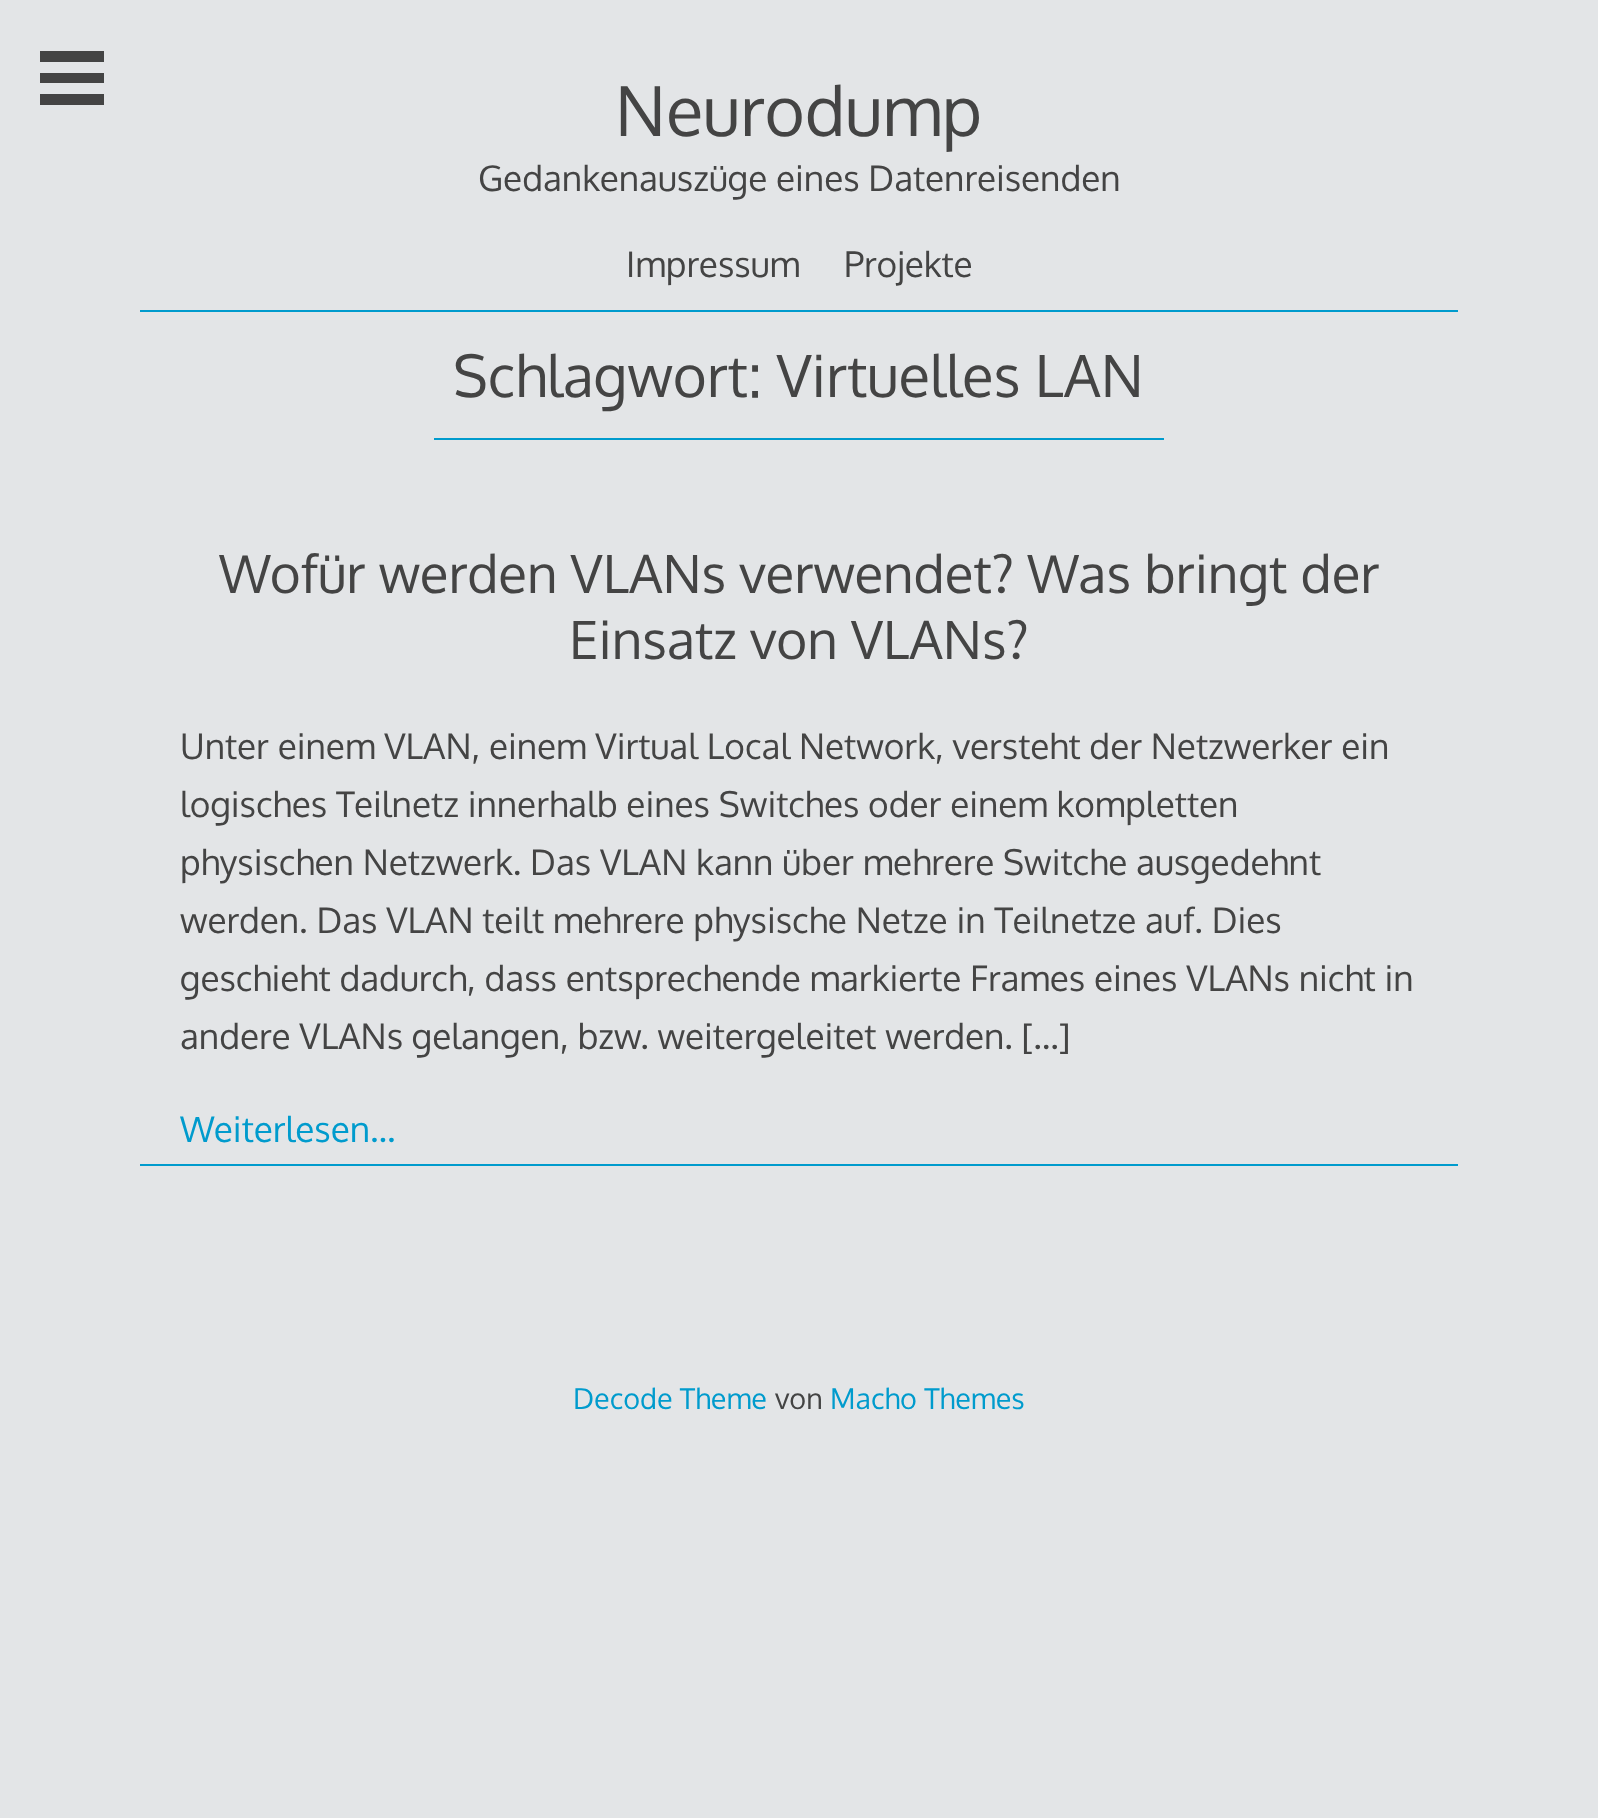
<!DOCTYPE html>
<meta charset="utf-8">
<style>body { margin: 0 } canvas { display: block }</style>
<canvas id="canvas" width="1598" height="1818"></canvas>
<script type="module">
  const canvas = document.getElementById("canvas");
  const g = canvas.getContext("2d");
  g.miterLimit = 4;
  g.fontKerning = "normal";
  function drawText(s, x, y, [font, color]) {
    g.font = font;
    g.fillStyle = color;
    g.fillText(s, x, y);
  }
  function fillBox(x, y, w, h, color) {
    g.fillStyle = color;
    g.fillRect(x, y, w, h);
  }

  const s1 = ["68.75px Oxygen", "#444444"];
  const s2 = ["35.2px Oxygen", "#444444"];
  const s3 = ["58px Oxygen", "#444444"];
  const s4 = ["52.8px Oxygen", "#444444"];
  const s5 = ["35.2px Oxygen", "#009BCD"];
  const s6 = ["28.75px Oxygen", "#009BCD"];
  const s7 = ["28.75px Oxygen", "#444444"];

  fillBox(0, 0, 1598, 1818, "#E3E5E7");
  fillBox(40, 51, 64, 11, "#444444");
  fillBox(40, 73, 64, 10, "#444444");
  fillBox(40, 94, 64, 11, "#444444");
  fillBox(140, 310, 1318, 2, "#009BCD");
  drawText("Neurodump", 615, 136, s1);
  drawText("Gedankenauszüge eines Datenreisenden", 478, 191, s2);
  drawText("Impressum", 626, 277, s2);
  drawText("Projekte", 844, 277, s2);
  fillBox(434, 438, 730, 2, "#009BCD");
  drawText("Schlagwort: Virtuelles LAN", 453, 397, s3);
  drawText("Wofür werden VLANs verwendet? Was bringt der", 219, 593, s4);
  drawText("Einsatz von VLANs?", 569, 659, s4);
  drawText("Unter einem VLAN, einem Virtual Local Network, versteht der Netzwerker ein", 180, 759, s2);
  drawText("logisches Teilnetz innerhalb eines Switches oder einem kompletten", 180, 817, s2);
  drawText("physischen Netzwerk. Das VLAN kann über mehrere Switche ausgedehnt", 180, 875, s2);
  drawText("werden. Das VLAN teilt mehrere physische Netze in Teilnetze auf. Dies", 180, 933, s2);
  drawText("geschieht dadurch, dass entsprechende markierte Frames eines VLANs nicht in", 180, 991, s2);
  drawText("andere VLANs gelangen, bzw. weitergeleitet werden. […]", 180, 1049, s2);
  fillBox(140, 1164, 1318, 2, "#009BCD");
  drawText("Weiterlesen…", 180, 1142, s5);
  drawText("Decode Theme", 573, 1409, s6);
  drawText("von", 775, 1409, s7);
  drawText("Macho Themes", 830, 1409, s6);
</script>
